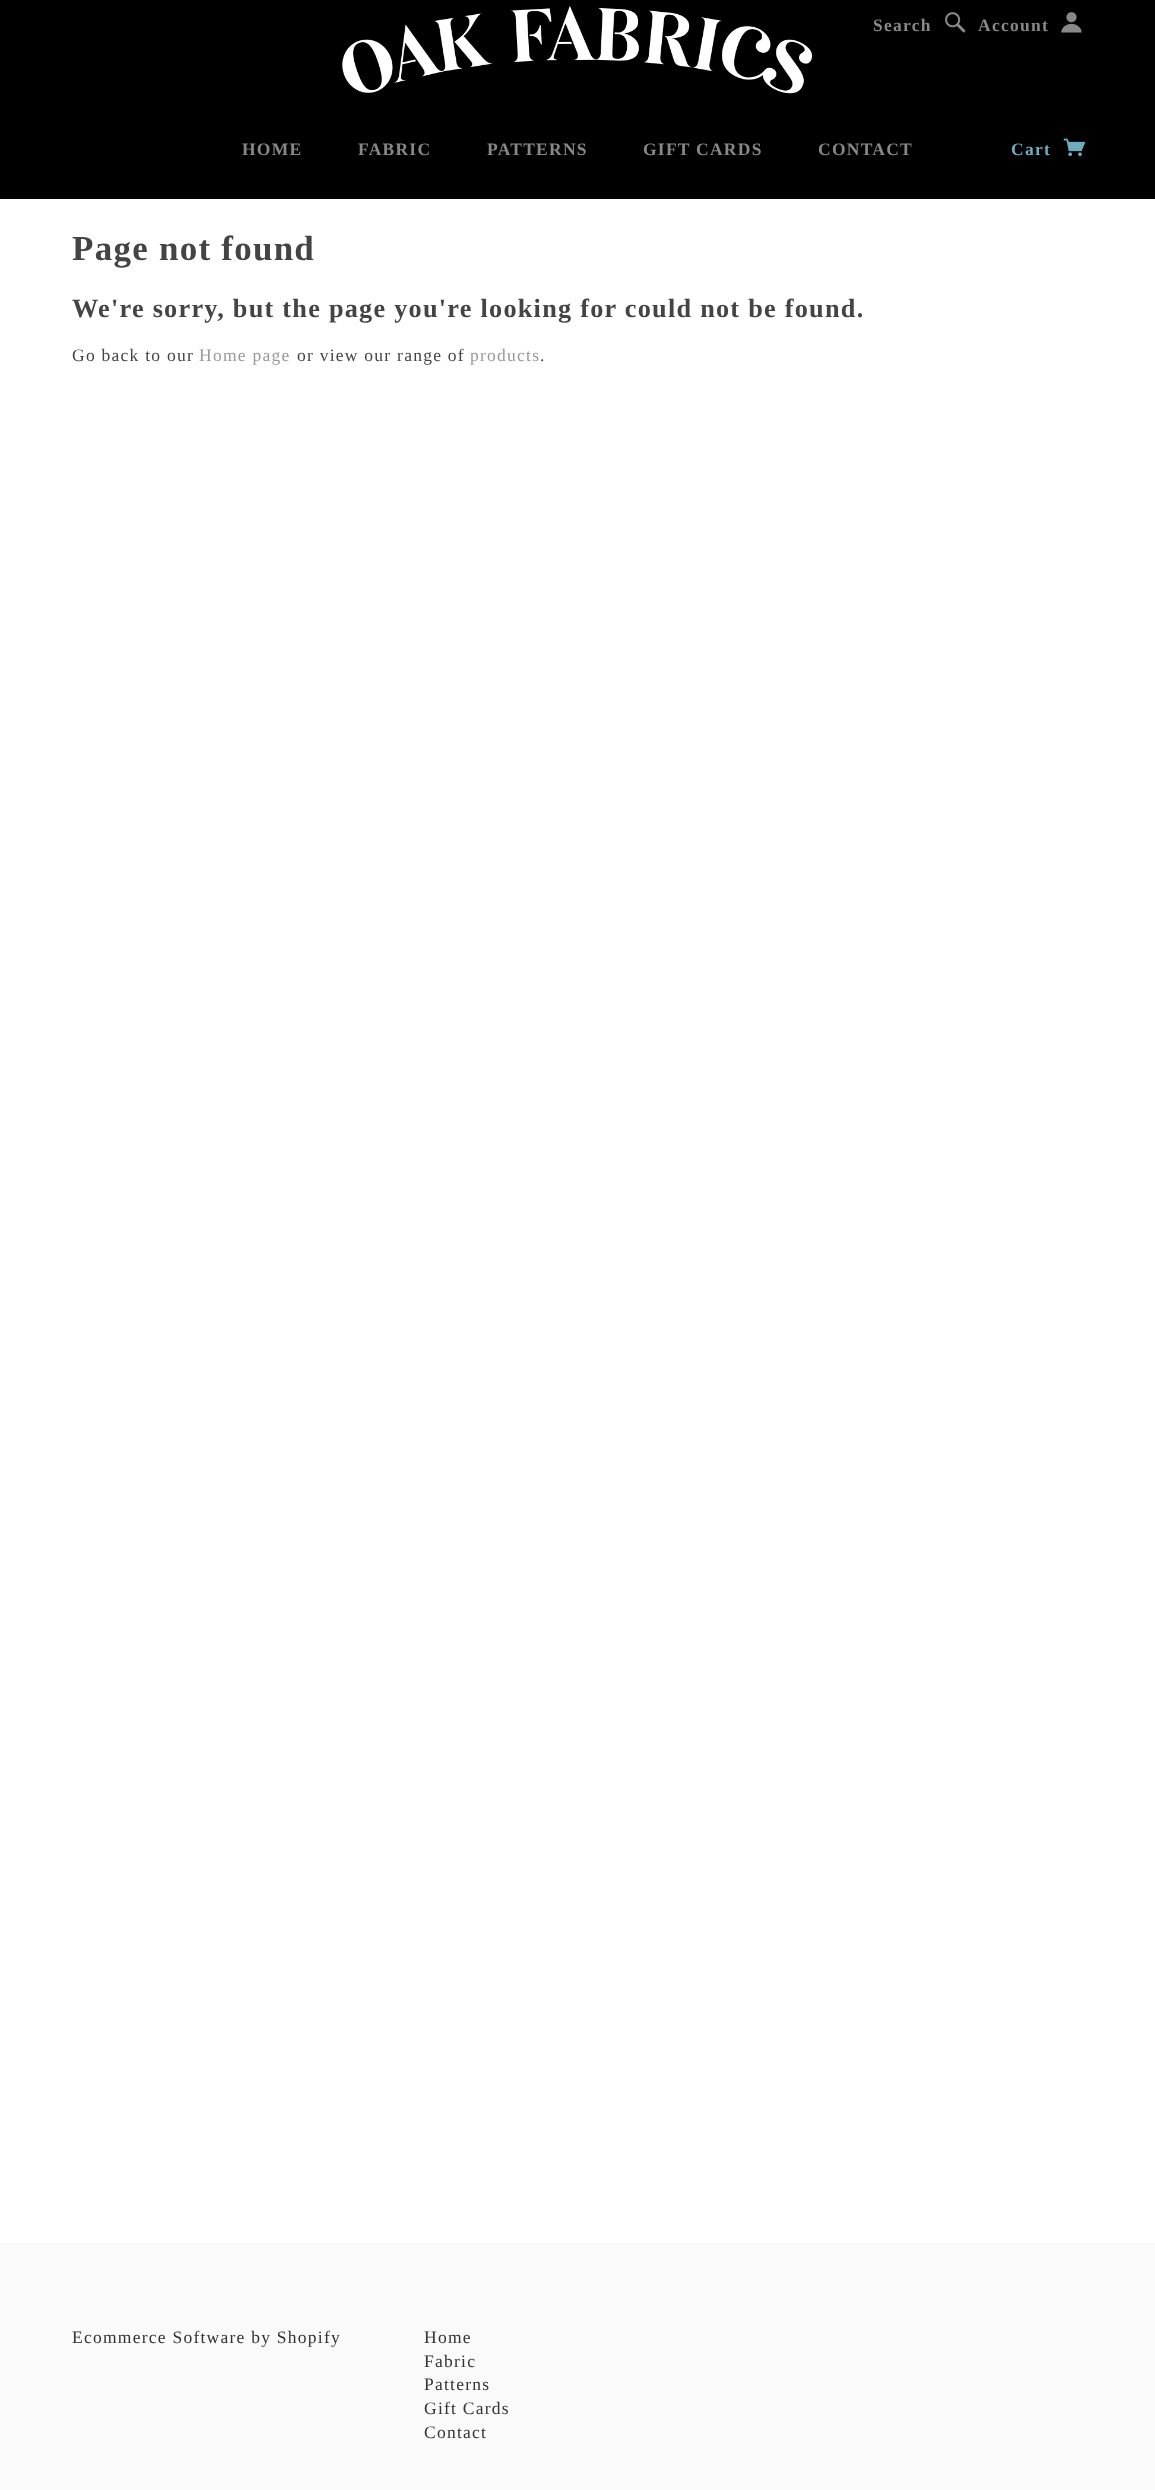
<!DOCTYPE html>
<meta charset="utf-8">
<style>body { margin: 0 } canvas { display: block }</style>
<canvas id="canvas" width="1155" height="2490"></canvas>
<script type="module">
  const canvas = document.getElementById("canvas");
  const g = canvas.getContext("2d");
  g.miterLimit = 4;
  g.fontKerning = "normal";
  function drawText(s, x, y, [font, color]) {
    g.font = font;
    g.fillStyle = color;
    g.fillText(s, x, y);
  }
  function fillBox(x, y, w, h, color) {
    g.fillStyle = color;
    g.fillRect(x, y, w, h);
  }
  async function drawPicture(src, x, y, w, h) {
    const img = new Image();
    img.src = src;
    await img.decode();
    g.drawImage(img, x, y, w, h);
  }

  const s1 = ["bold 17.5px Liberation Serif", "#888888"];
  const s2 = ["bold 17.5px Liberation Serif", "#71ABBE"];
  const s3 = ["bold 35px Liberation Serif", "#444444"];
  const s4 = ["bold 26.25px Liberation Serif", "#444444"];
  const s5 = ["17.5px Liberation Serif", "#444444"];
  const s6 = ["17.5px Liberation Serif", "#999999"];
  const s7 = ["17.5px Liberation Serif", "#333333"];

  fillBox(0, 0, 1155, 2490, "#FFFFFF");
  fillBox(0, 0, 1155, 199, "#000000");
  await drawPicture("pic1.png", 342, 6, 470, 88);
  g.letterSpacing = "1.25px";
  drawText("Search", 873, 31, s1);
  await drawPicture("pic2.png", 945, 12, 21, 21);
  drawText("Account", 978, 31, s1);
  await drawPicture("pic3.png", 1061, 12, 21, 21);
  drawText("HOME", 242, 155, s1);
  drawText("FABRIC", 358, 155, s1);
  drawText("PATTERNS", 487, 155, s1);
  drawText("GIFT CARDS", 643, 155, s1);
  drawText("CONTACT", 818, 155, s1);
  drawText("Cart", 1011, 155, s2);
  await drawPicture("pic4.png", 1063, 138, 23, 19);
  drawText("Page not found", 72, 260, s3);
  drawText("We're sorry, but the page you're looking for could not be found.", 72, 317, s4);
  drawText("Go back to our", 72, 361, s5);
  drawText("Home page", 199, 361, s6);
  drawText("or view our range of", 297, 361, s5);
  drawText("products", 470, 361, s6);
  drawText(".", 540, 361, s5);
  fillBox(0, 2243, 1155, 247, "#FAFAFA");
  drawText("Ecommerce Software by Shopify", 72, 2343, s7);
  drawText("Home", 424, 2343, s7);
  drawText("Fabric", 424, 2367, s7);
  drawText("Patterns", 424, 2390, s7);
  drawText("Gift Cards", 424, 2414, s7);
  drawText("Contact", 424, 2438, s7);
</script>
